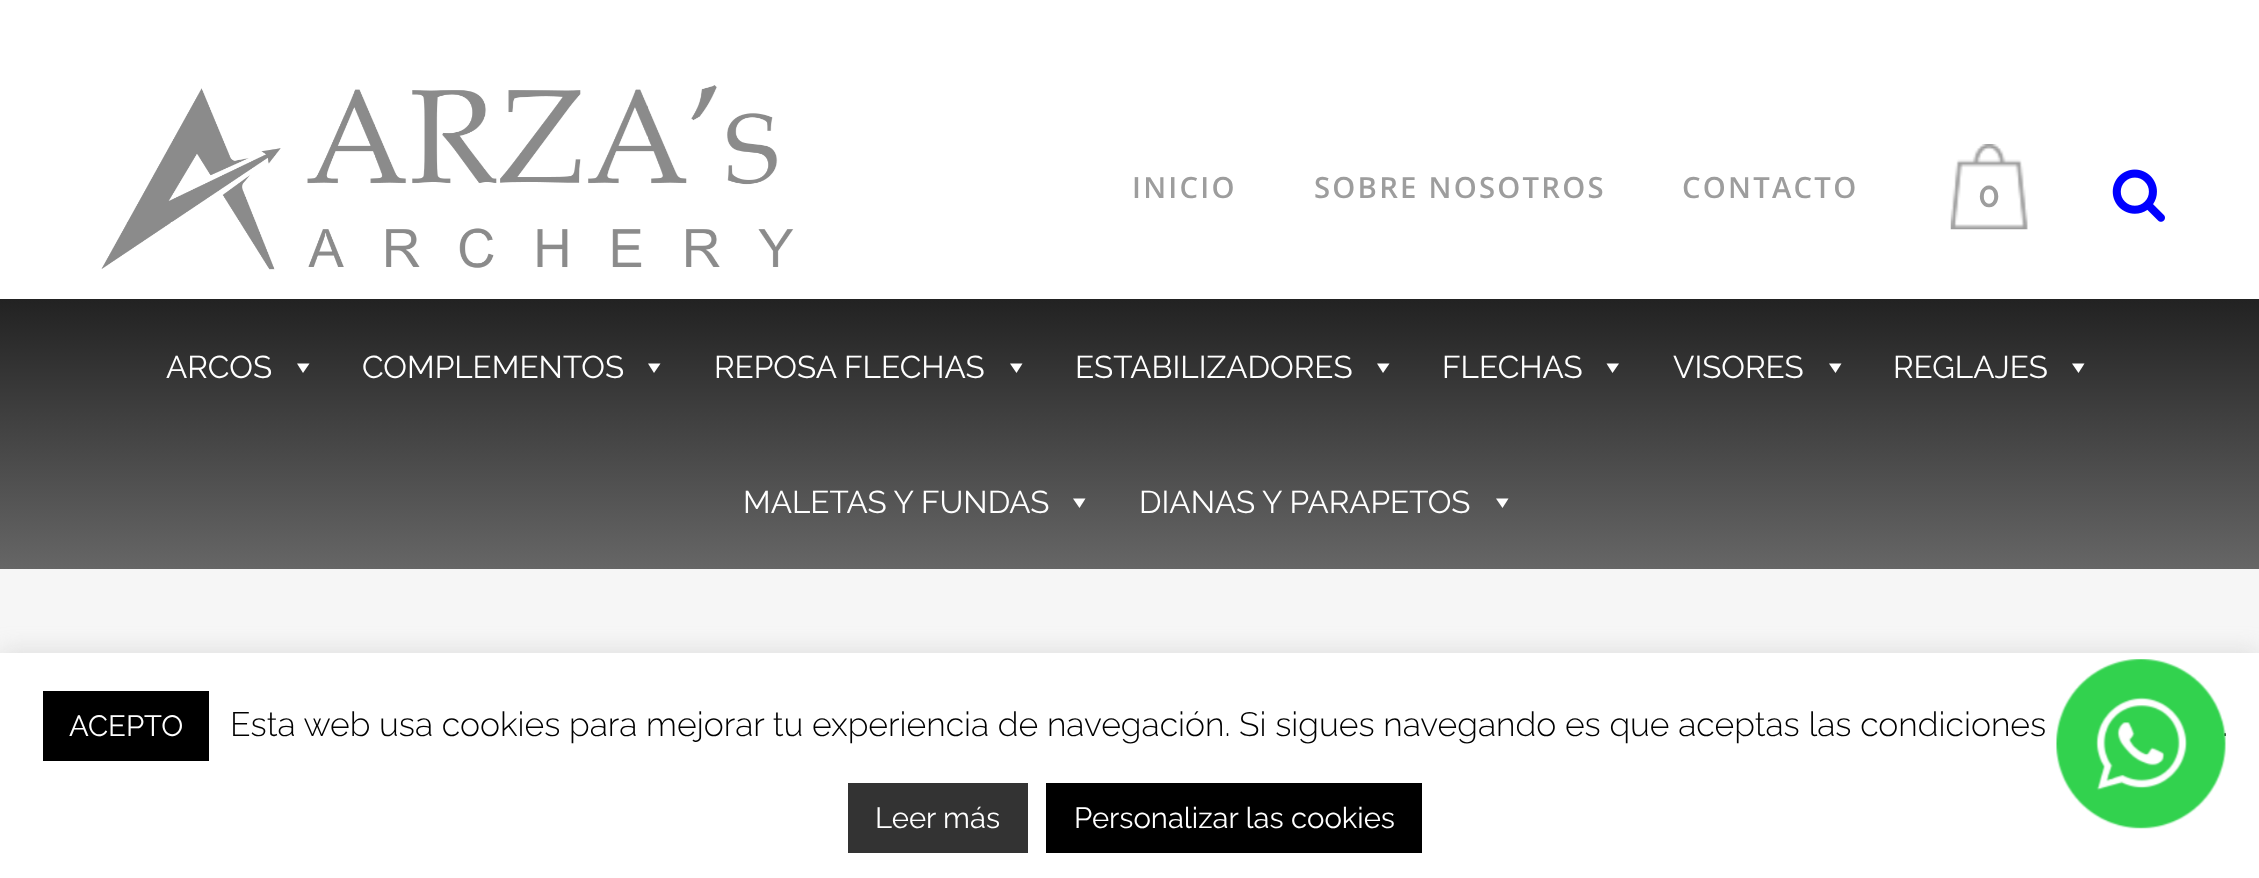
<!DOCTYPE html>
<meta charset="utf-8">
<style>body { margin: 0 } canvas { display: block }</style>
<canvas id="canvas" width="2259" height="878"></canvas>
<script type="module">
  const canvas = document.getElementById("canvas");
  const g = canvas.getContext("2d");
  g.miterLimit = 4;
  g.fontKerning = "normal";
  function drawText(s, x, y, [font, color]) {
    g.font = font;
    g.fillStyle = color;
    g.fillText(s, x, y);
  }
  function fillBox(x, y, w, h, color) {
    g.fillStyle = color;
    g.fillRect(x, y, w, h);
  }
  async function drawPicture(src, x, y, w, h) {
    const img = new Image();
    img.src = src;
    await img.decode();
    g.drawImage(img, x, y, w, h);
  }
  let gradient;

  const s1 = ["600 29.25px Open Sans", "#9D9D9D"];
  const s2 = ["600 36px Raleway", "#9D9D9D"];
  const s3 = ["31.5px Raleway", "#FFFFFF"];
  const s4 = ["300 33.75px Raleway", "#000000"];
  const s5 = ["29.25px Raleway", "#FFFFFF"];

  fillBox(0, 0, 2259, 878, "#F6F6F6");
  fillBox(0, 0, 2259, 299, "#FFFFFF");
  await drawPicture("pic1.png", 101, 85, 693, 185);
  g.letterSpacing = "2.25px";
  drawText("INICIO", 1132, 198, s1);
  drawText("SOBRE NOSOTROS", 1314, 198, s1);
  drawText("CONTACTO", 1682, 198, s1);
  await drawPicture("pic2.png", 1950, 144, 78, 86);
  g.letterSpacing = "0px";
  drawText("0", 1978, 207, s2);
  await drawPicture("pic3.png", 2112, 169, 53, 53);
  gradient = g.createLinearGradient(1130, 299, 1130, 569);
  gradient.addColorStop(0, "#222222");
  gradient.addColorStop(1, "#666666");
  g.fillStyle = gradient;
  g.fillRect(0, 299, 2259, 270);
  drawText("ARCOS", 166, 378, s3);
  g.beginPath();
  g.moveTo(309.5, 363.5);
  g.lineTo(303, 373);
  g.lineTo(297, 363.5);
  g.closePath();
  g.fill();
  drawText("COMPLEMENTOS", 362, 378, s3);
  g.beginPath();
  g.moveTo(660.5, 363.5);
  g.lineTo(654, 373);
  g.lineTo(648, 363.5);
  g.closePath();
  g.fill();
  drawText("REPOSA FLECHAS", 714, 378, s3);
  g.beginPath();
  g.moveTo(1022.5, 363.5);
  g.lineTo(1016.5, 373);
  g.lineTo(1010, 363.5);
  g.closePath();
  g.fill();
  drawText("ESTABILIZADORES", 1075, 378, s3);
  g.beginPath();
  g.moveTo(1389.5, 363.5);
  g.lineTo(1383, 373);
  g.lineTo(1377, 363.5);
  g.closePath();
  g.fill();
  drawText("FLECHAS", 1442, 378, s3);
  g.beginPath();
  g.moveTo(1619, 363.5);
  g.lineTo(1612.5, 373);
  g.lineTo(1606.5, 363.5);
  g.closePath();
  g.fill();
  drawText("VISORES", 1673, 378, s3);
  g.beginPath();
  g.moveTo(1841.5, 363.5);
  g.lineTo(1835.5, 373);
  g.lineTo(1829, 363.5);
  g.closePath();
  g.fill();
  drawText("REGLAJES", 1893, 378, s3);
  g.beginPath();
  g.moveTo(2084.5, 363.5);
  g.lineTo(2078.5, 373);
  g.lineTo(2072, 363.5);
  g.closePath();
  g.fill();
  drawText("MALETAS Y FUNDAS", 743, 513, s3);
  g.beginPath();
  g.moveTo(1085.5, 498.5);
  g.lineTo(1079.5, 508);
  g.lineTo(1073, 498.5);
  g.closePath();
  g.fill();
  drawText("DIANAS Y PARAPETOS", 1139, 513, s3);
  g.beginPath();
  g.moveTo(1508.5, 498.5);
  g.lineTo(1502.5, 508);
  g.lineTo(1496, 498.5);
  g.closePath();
  g.fill();
  g.fillStyle = "rgba(172, 171, 171, 0.3)";
  g.filter = "blur(11px)";
  g.beginPath();
  g.rect(0, 650, 2259, 228);
  g.fill();
  g.filter = "none";
  fillBox(0, 653, 2259, 225, "#FFFFFF");
  drawText(".", 2222, 736, s4);
  await drawPicture("pic4.png", 2056, 659, 170, 170);
  fillBox(43, 691, 166, 70, "#000000");
  drawText("ACEPTO", 69, 736, s5);
  drawText("Esta web usa cookies para mejorar tu experiencia de navegación. Si sigues navegando es que aceptas las condiciones", 230, 736, s4);
  fillBox(848, 783, 180, 70, "#333333");
  drawText("Leer más", 875, 828, s5);
  fillBox(1046, 783, 376, 70, "#000000");
  drawText("Personalizar las cookies", 1074, 828, s5);
</script>
